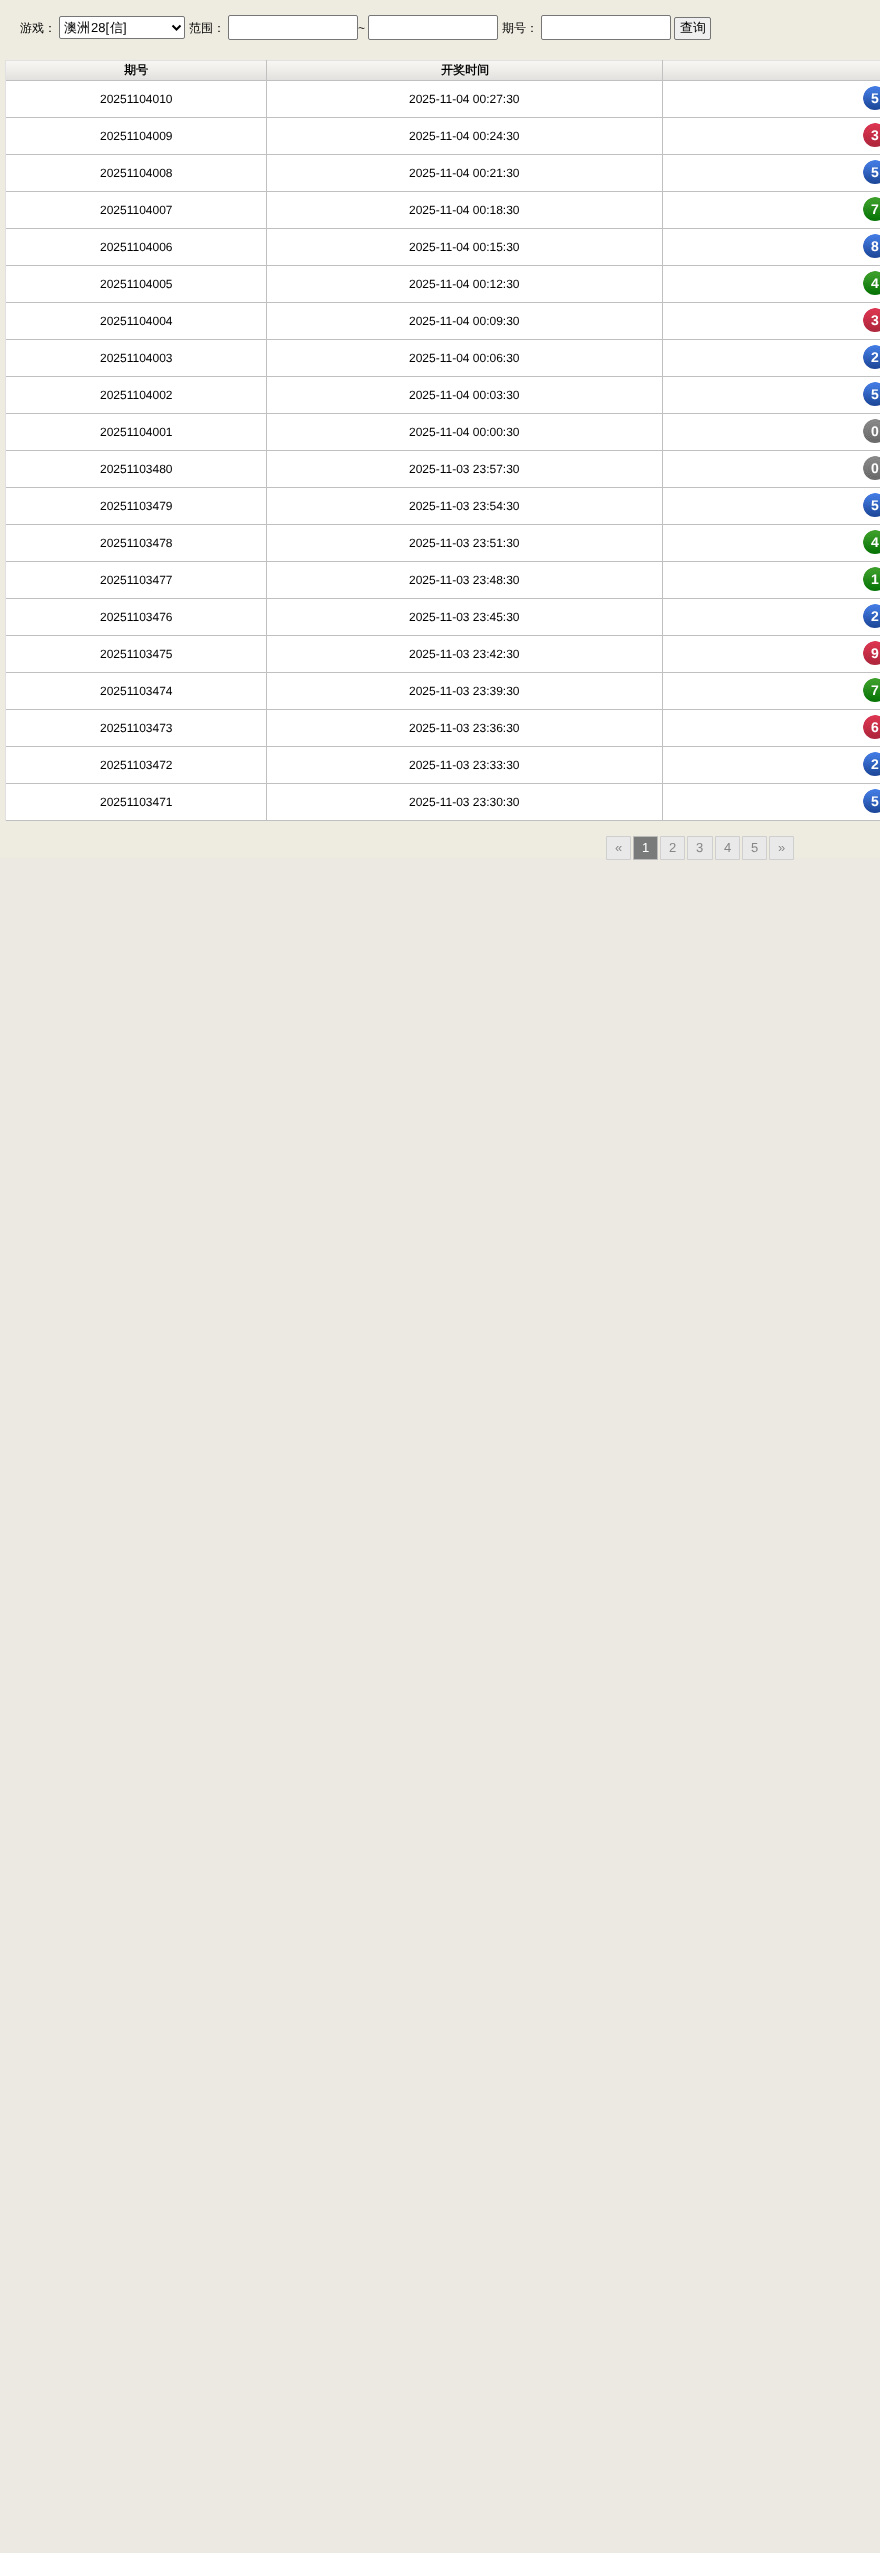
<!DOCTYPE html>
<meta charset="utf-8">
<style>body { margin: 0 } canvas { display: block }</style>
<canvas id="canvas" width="880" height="2553"></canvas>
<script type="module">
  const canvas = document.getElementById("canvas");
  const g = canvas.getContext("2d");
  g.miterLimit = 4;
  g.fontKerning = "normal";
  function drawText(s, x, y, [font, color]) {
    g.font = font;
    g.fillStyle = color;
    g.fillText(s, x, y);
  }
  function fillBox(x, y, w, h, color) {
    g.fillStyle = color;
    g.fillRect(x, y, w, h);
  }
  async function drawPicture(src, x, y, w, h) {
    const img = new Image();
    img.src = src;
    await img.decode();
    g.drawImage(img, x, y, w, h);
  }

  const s1 = ["500 12px WenQuanYi Zen Hei", "#000000"];
  const s2 = ["500 13px WenQuanYi Zen Hei", "#000000"];
  const s3 = ["13px Liberation Sans", "#000000"];
  const s4 = ["12px Liberation Sans", "#000000"];
  const s5 = ["bold 12px WenQuanYi Zen Hei", "#000000"];
  const s6 = ["bold 14px Liberation Sans", "#FFFFFF"];
  const s7 = ["13px Liberation Sans", "#868686"];
  const s8 = ["13px Liberation Sans", "#FFFFFF"];

  fillBox(0, 0, 880, 2553, "#ECE9E2");
  fillBox(0, 0, 880, 858, "#EEECE1");
  drawText("游戏：", 20, 32, s1);
  g.fillStyle = "#FFFFFF";
  g.beginPath();
  g.roundRect(59.5, 16.5, 125, 22, 1.5);
  g.fill();
  g.strokeStyle = "#767676";
  g.stroke();
  g.beginPath();
  g.moveTo(172.5, 25.5);
  g.lineTo(176.5, 29.5);
  g.lineTo(180.5, 25.5);
  g.strokeStyle = "#000000";
  g.lineWidth = 2;
  g.stroke();
  drawText("澳洲", 64, 32, s2);
  drawText("28[", 91, 32, s3);
  drawText("信", 110, 32, s2);
  drawText("]", 123, 32, s3);
  drawText("范围：", 189, 32, s1);
  g.fillStyle = "#FFFFFF";
  g.beginPath();
  g.roundRect(228.5, 15.5, 129, 24, 1.5);
  g.fill();
  g.strokeStyle = "#767676";
  g.lineWidth = 1;
  g.stroke();
  drawText("~", 358, 32, s4);
  g.fillStyle = "#FFFFFF";
  g.beginPath();
  g.roundRect(368.5, 15.5, 129, 24, 1.5);
  g.fill();
  g.stroke();
  drawText("期号：", 502, 32, s1);
  g.fillStyle = "#FFFFFF";
  g.beginPath();
  g.roundRect(541.5, 15.5, 129, 24, 1.5);
  g.fill();
  g.stroke();
  g.fillStyle = "#EFEFEF";
  g.beginPath();
  g.roundRect(674.5, 17.5, 36, 22, 1.5);
  g.fill();
  g.stroke();
  drawText("查询", 680, 32, s2);
  await drawPicture("pic1.png", 6, 61, 874, 19);
  fillBox(5, 60, 875, 1, "#E1E1E1");
  fillBox(266, 60, 1, 1, "#C0C0C0");
  fillBox(662, 820, 218, 1, "#C0C0C0");
  fillBox(662, 783, 1, 38, "#C0C0C0");
  fillBox(662, 783, 218, 1, "#C0C0C0");
  fillBox(662, 746, 1, 38, "#C0C0C0");
  fillBox(662, 746, 218, 1, "#C0C0C0");
  fillBox(662, 709, 1, 38, "#C0C0C0");
  fillBox(662, 709, 218, 1, "#C0C0C0");
  fillBox(662, 672, 1, 38, "#C0C0C0");
  fillBox(662, 672, 218, 1, "#C0C0C0");
  fillBox(662, 635, 1, 38, "#C0C0C0");
  fillBox(662, 635, 218, 1, "#C0C0C0");
  fillBox(662, 598, 1, 38, "#C0C0C0");
  fillBox(662, 598, 218, 1, "#C0C0C0");
  fillBox(662, 561, 1, 38, "#C0C0C0");
  fillBox(662, 561, 218, 1, "#C0C0C0");
  fillBox(662, 524, 1, 38, "#C0C0C0");
  fillBox(662, 524, 218, 1, "#C0C0C0");
  fillBox(662, 487, 1, 38, "#C0C0C0");
  fillBox(662, 487, 218, 1, "#C0C0C0");
  fillBox(662, 450, 1, 38, "#C0C0C0");
  fillBox(662, 450, 218, 1, "#C0C0C0");
  fillBox(662, 413, 1, 38, "#C0C0C0");
  fillBox(662, 413, 218, 1, "#C0C0C0");
  fillBox(662, 376, 1, 38, "#C0C0C0");
  fillBox(662, 376, 218, 1, "#C0C0C0");
  fillBox(662, 339, 1, 38, "#C0C0C0");
  fillBox(662, 339, 218, 1, "#C0C0C0");
  fillBox(662, 302, 1, 38, "#C0C0C0");
  fillBox(662, 302, 218, 1, "#C0C0C0");
  fillBox(662, 265, 1, 38, "#C0C0C0");
  fillBox(662, 265, 218, 1, "#C0C0C0");
  fillBox(662, 228, 1, 38, "#C0C0C0");
  fillBox(662, 228, 218, 1, "#C0C0C0");
  fillBox(662, 191, 1, 38, "#C0C0C0");
  fillBox(662, 191, 218, 1, "#C0C0C0");
  fillBox(662, 154, 1, 38, "#C0C0C0");
  fillBox(662, 154, 218, 1, "#C0C0C0");
  fillBox(662, 117, 1, 38, "#C0C0C0");
  fillBox(662, 117, 218, 1, "#C0C0C0");
  fillBox(662, 80, 1, 38, "#C0C0C0");
  fillBox(266, 820, 397, 1, "#C0C0C0");
  fillBox(266, 783, 1, 38, "#C0C0C0");
  fillBox(266, 783, 397, 1, "#C0C0C0");
  fillBox(266, 746, 1, 38, "#C0C0C0");
  fillBox(266, 746, 397, 1, "#C0C0C0");
  fillBox(266, 709, 1, 38, "#C0C0C0");
  fillBox(266, 709, 397, 1, "#C0C0C0");
  fillBox(266, 672, 1, 38, "#C0C0C0");
  fillBox(266, 672, 397, 1, "#C0C0C0");
  fillBox(266, 635, 1, 38, "#C0C0C0");
  fillBox(266, 635, 397, 1, "#C0C0C0");
  fillBox(266, 598, 1, 38, "#C0C0C0");
  fillBox(266, 598, 397, 1, "#C0C0C0");
  fillBox(266, 561, 1, 38, "#C0C0C0");
  fillBox(266, 561, 397, 1, "#C0C0C0");
  fillBox(266, 524, 1, 38, "#C0C0C0");
  fillBox(266, 524, 397, 1, "#C0C0C0");
  fillBox(266, 487, 1, 38, "#C0C0C0");
  fillBox(266, 487, 397, 1, "#C0C0C0");
  fillBox(266, 450, 1, 38, "#C0C0C0");
  fillBox(266, 450, 397, 1, "#C0C0C0");
  fillBox(266, 413, 1, 38, "#C0C0C0");
  fillBox(266, 413, 397, 1, "#C0C0C0");
  fillBox(266, 376, 1, 38, "#C0C0C0");
  fillBox(266, 376, 397, 1, "#C0C0C0");
  fillBox(266, 339, 1, 38, "#C0C0C0");
  fillBox(266, 339, 397, 1, "#C0C0C0");
  fillBox(266, 302, 1, 38, "#C0C0C0");
  fillBox(266, 302, 397, 1, "#C0C0C0");
  fillBox(266, 265, 1, 38, "#C0C0C0");
  fillBox(266, 265, 397, 1, "#C0C0C0");
  fillBox(266, 228, 1, 38, "#C0C0C0");
  fillBox(266, 228, 397, 1, "#C0C0C0");
  fillBox(266, 191, 1, 38, "#C0C0C0");
  fillBox(266, 191, 397, 1, "#C0C0C0");
  fillBox(266, 154, 1, 38, "#C0C0C0");
  fillBox(266, 154, 397, 1, "#C0C0C0");
  fillBox(266, 117, 1, 38, "#C0C0C0");
  fillBox(266, 117, 397, 1, "#C0C0C0");
  fillBox(266, 80, 1, 38, "#C0C0C0");
  fillBox(5, 820, 262, 1, "#C0C0C0");
  fillBox(5, 783, 1, 38, "#E1E1E1");
  fillBox(5, 783, 262, 1, "#C0C0C0");
  fillBox(5, 746, 1, 38, "#E1E1E1");
  fillBox(5, 746, 262, 1, "#C0C0C0");
  fillBox(5, 709, 1, 38, "#E1E1E1");
  fillBox(5, 709, 262, 1, "#C0C0C0");
  fillBox(5, 672, 1, 38, "#E1E1E1");
  fillBox(5, 672, 262, 1, "#C0C0C0");
  fillBox(5, 635, 1, 38, "#E1E1E1");
  fillBox(5, 635, 262, 1, "#C0C0C0");
  fillBox(5, 598, 1, 38, "#E1E1E1");
  fillBox(5, 598, 262, 1, "#C0C0C0");
  fillBox(5, 561, 1, 38, "#E1E1E1");
  fillBox(5, 561, 262, 1, "#C0C0C0");
  fillBox(5, 524, 1, 38, "#E1E1E1");
  fillBox(5, 524, 262, 1, "#C0C0C0");
  fillBox(5, 487, 1, 38, "#E1E1E1");
  fillBox(5, 487, 262, 1, "#C0C0C0");
  fillBox(5, 450, 1, 38, "#E1E1E1");
  fillBox(5, 450, 262, 1, "#C0C0C0");
  fillBox(5, 413, 1, 38, "#E1E1E1");
  fillBox(5, 413, 262, 1, "#C0C0C0");
  fillBox(5, 376, 1, 38, "#E1E1E1");
  fillBox(5, 376, 262, 1, "#C0C0C0");
  fillBox(5, 339, 1, 38, "#E1E1E1");
  fillBox(5, 339, 262, 1, "#C0C0C0");
  fillBox(5, 302, 1, 38, "#E1E1E1");
  fillBox(5, 302, 262, 1, "#C0C0C0");
  fillBox(5, 265, 1, 38, "#E1E1E1");
  fillBox(5, 265, 262, 1, "#C0C0C0");
  fillBox(5, 228, 1, 38, "#E1E1E1");
  fillBox(5, 228, 262, 1, "#C0C0C0");
  fillBox(5, 191, 1, 38, "#E1E1E1");
  fillBox(5, 191, 262, 1, "#C0C0C0");
  fillBox(5, 154, 1, 38, "#E1E1E1");
  fillBox(5, 154, 262, 1, "#C0C0C0");
  fillBox(5, 117, 1, 38, "#E1E1E1");
  fillBox(5, 117, 262, 1, "#C0C0C0");
  fillBox(5, 80, 1, 38, "#E1E1E1");
  fillBox(5, 80, 875, 1, "#C0C0C0");
  fillBox(5, 60, 1, 21, "#E1E1E1");
  drawText("期号", 124, 74, s5);
  fillBox(662, 60, 1, 1, "#C0C0C0");
  drawText("开奖时间", 441, 74, s5);
  fillBox(6, 81, 260, 36, "#FFFFFF");
  drawText("20251104010", 100, 103, s4);
  fillBox(267, 81, 395, 36, "#FFFFFF");
  drawText("2025-11-04 00:27:30", 409, 103, s4);
  fillBox(663, 81, 217, 36, "#FFFFFF");
  await drawPicture("pic2.png", 863, 86, 17, 24);
  drawText("5", 871, 103, s6);
  fillBox(6, 118, 260, 36, "#FFFFFF");
  drawText("20251104009", 100, 140, s4);
  fillBox(267, 118, 395, 36, "#FFFFFF");
  drawText("2025-11-04 00:24:30", 409, 140, s4);
  fillBox(663, 118, 217, 36, "#FFFFFF");
  await drawPicture("pic3.png", 863, 123, 17, 24);
  drawText("3", 871, 140, s6);
  fillBox(6, 155, 260, 36, "#FFFFFF");
  drawText("20251104008", 100, 177, s4);
  fillBox(267, 155, 395, 36, "#FFFFFF");
  drawText("2025-11-04 00:21:30", 409, 177, s4);
  fillBox(663, 155, 217, 36, "#FFFFFF");
  await drawPicture("pic2.png", 863, 160, 17, 24);
  drawText("5", 871, 177, s6);
  fillBox(6, 192, 260, 36, "#FFFFFF");
  drawText("20251104007", 100, 214, s4);
  fillBox(267, 192, 395, 36, "#FFFFFF");
  drawText("2025-11-04 00:18:30", 409, 214, s4);
  fillBox(663, 192, 217, 36, "#FFFFFF");
  await drawPicture("pic4.png", 863, 197, 17, 24);
  drawText("7", 871, 214, s6);
  fillBox(6, 229, 260, 36, "#FFFFFF");
  drawText("20251104006", 100, 251, s4);
  fillBox(267, 229, 395, 36, "#FFFFFF");
  drawText("2025-11-04 00:15:30", 409, 251, s4);
  fillBox(663, 229, 217, 36, "#FFFFFF");
  await drawPicture("pic5.png", 863, 234, 17, 24);
  drawText("8", 871, 251, s6);
  fillBox(6, 266, 260, 36, "#FFFFFF");
  drawText("20251104005", 100, 288, s4);
  fillBox(267, 266, 395, 36, "#FFFFFF");
  drawText("2025-11-04 00:12:30", 409, 288, s4);
  fillBox(663, 266, 217, 36, "#FFFFFF");
  await drawPicture("pic4.png", 863, 271, 17, 24);
  drawText("4", 871, 288, s6);
  fillBox(6, 303, 260, 36, "#FFFFFF");
  drawText("20251104004", 100, 325, s4);
  fillBox(267, 303, 395, 36, "#FFFFFF");
  drawText("2025-11-04 00:09:30", 409, 325, s4);
  fillBox(663, 303, 217, 36, "#FFFFFF");
  await drawPicture("pic3.png", 863, 308, 17, 24);
  drawText("3", 871, 325, s6);
  fillBox(6, 340, 260, 36, "#FFFFFF");
  drawText("20251104003", 100, 362, s4);
  fillBox(267, 340, 395, 36, "#FFFFFF");
  drawText("2025-11-04 00:06:30", 409, 362, s4);
  fillBox(663, 340, 217, 36, "#FFFFFF");
  await drawPicture("pic2.png", 863, 345, 17, 24);
  drawText("2", 871, 362, s6);
  fillBox(6, 377, 260, 36, "#FFFFFF");
  drawText("20251104002", 100, 399, s4);
  fillBox(267, 377, 395, 36, "#FFFFFF");
  drawText("2025-11-04 00:03:30", 409, 399, s4);
  fillBox(663, 377, 217, 36, "#FFFFFF");
  await drawPicture("pic2.png", 863, 382, 17, 24);
  drawText("5", 871, 399, s6);
  fillBox(6, 414, 260, 36, "#FFFFFF");
  drawText("20251104001", 100, 436, s4);
  fillBox(267, 414, 395, 36, "#FFFFFF");
  drawText("2025-11-04 00:00:30", 409, 436, s4);
  fillBox(663, 414, 217, 36, "#FFFFFF");
  await drawPicture("pic6.png", 863, 419, 17, 24);
  drawText("0", 871, 436, s6);
  fillBox(6, 451, 260, 36, "#FFFFFF");
  drawText("20251103480", 100, 473, s4);
  fillBox(267, 451, 395, 36, "#FFFFFF");
  drawText("2025-11-03 23:57:30", 409, 473, s4);
  fillBox(663, 451, 217, 36, "#FFFFFF");
  await drawPicture("pic6.png", 863, 456, 17, 24);
  drawText("0", 871, 473, s6);
  fillBox(6, 488, 260, 36, "#FFFFFF");
  drawText("20251103479", 100, 510, s4);
  fillBox(267, 488, 395, 36, "#FFFFFF");
  drawText("2025-11-03 23:54:30", 409, 510, s4);
  fillBox(663, 488, 217, 36, "#FFFFFF");
  await drawPicture("pic7.png", 863, 493, 17, 24);
  drawText("5", 871, 510, s6);
  fillBox(6, 525, 260, 36, "#FFFFFF");
  drawText("20251103478", 100, 547, s4);
  fillBox(267, 525, 395, 36, "#FFFFFF");
  drawText("2025-11-03 23:51:30", 409, 547, s4);
  fillBox(663, 525, 217, 36, "#FFFFFF");
  await drawPicture("pic4.png", 863, 530, 17, 24);
  drawText("4", 871, 547, s6);
  fillBox(6, 562, 260, 36, "#FFFFFF");
  drawText("20251103477", 100, 584, s4);
  fillBox(267, 562, 395, 36, "#FFFFFF");
  drawText("2025-11-03 23:48:30", 409, 584, s4);
  fillBox(663, 562, 217, 36, "#FFFFFF");
  await drawPicture("pic4.png", 863, 567, 17, 24);
  drawText("1", 871, 584, s6);
  fillBox(6, 599, 260, 36, "#FFFFFF");
  drawText("20251103476", 100, 621, s4);
  fillBox(267, 599, 395, 36, "#FFFFFF");
  drawText("2025-11-03 23:45:30", 409, 621, s4);
  fillBox(663, 599, 217, 36, "#FFFFFF");
  await drawPicture("pic2.png", 863, 604, 17, 24);
  drawText("2", 871, 621, s6);
  fillBox(6, 636, 260, 36, "#FFFFFF");
  drawText("20251103475", 100, 658, s4);
  fillBox(267, 636, 395, 36, "#FFFFFF");
  drawText("2025-11-03 23:42:30", 409, 658, s4);
  fillBox(663, 636, 217, 36, "#FFFFFF");
  await drawPicture("pic3.png", 863, 641, 17, 24);
  drawText("9", 871, 658, s6);
  fillBox(6, 673, 260, 36, "#FFFFFF");
  drawText("20251103474", 100, 695, s4);
  fillBox(267, 673, 395, 36, "#FFFFFF");
  drawText("2025-11-03 23:39:30", 409, 695, s4);
  fillBox(663, 673, 217, 36, "#FFFFFF");
  await drawPicture("pic4.png", 863, 678, 17, 24);
  drawText("7", 871, 695, s6);
  fillBox(6, 710, 260, 36, "#FFFFFF");
  drawText("20251103473", 100, 732, s4);
  fillBox(267, 710, 395, 36, "#FFFFFF");
  drawText("2025-11-03 23:36:30", 409, 732, s4);
  fillBox(663, 710, 217, 36, "#FFFFFF");
  await drawPicture("pic3.png", 863, 715, 17, 24);
  drawText("6", 871, 732, s6);
  fillBox(6, 747, 260, 36, "#FFFFFF");
  drawText("20251103472", 100, 769, s4);
  fillBox(267, 747, 395, 36, "#FFFFFF");
  drawText("2025-11-03 23:33:30", 409, 769, s4);
  fillBox(663, 747, 217, 36, "#FFFFFF");
  await drawPicture("pic8.png", 863, 752, 17, 24);
  drawText("2", 871, 769, s6);
  fillBox(6, 784, 260, 36, "#FFFFFF");
  drawText("20251103471", 100, 806, s4);
  fillBox(267, 784, 395, 36, "#FFFFFF");
  drawText("2025-11-03 23:30:30", 409, 806, s4);
  fillBox(663, 784, 217, 36, "#FFFFFF");
  await drawPicture("pic2.png", 863, 789, 17, 24);
  drawText("5", 871, 806, s6);
  g.fillStyle = "#E9E9EA";
  g.beginPath();
  g.rect(606.5, 836.5, 24, 23);
  g.fill();
  g.strokeStyle = "#CFCFCF";
  g.stroke();
  drawText("«", 615, 852, s7);
  g.fillStyle = "#797A7A";
  g.beginPath();
  g.rect(633.5, 836.5, 24, 23);
  g.fill();
  g.strokeStyle = "#BBBBBB";
  g.stroke();
  drawText("1", 642, 852, s8);
  g.fillStyle = "#E9E9EA";
  g.beginPath();
  g.rect(660.5, 836.5, 24, 23);
  g.fill();
  g.strokeStyle = "#CFCFCF";
  g.stroke();
  drawText("2", 669, 852, s7);
  g.fillStyle = "#E9E9EA";
  g.beginPath();
  g.rect(687.5, 836.5, 25, 23);
  g.fill();
  g.stroke();
  drawText("3", 696, 852, s7);
  g.fillStyle = "#E9E9EA";
  g.beginPath();
  g.rect(715.5, 836.5, 24, 23);
  g.fill();
  g.stroke();
  drawText("4", 724, 852, s7);
  g.fillStyle = "#E9E9EA";
  g.beginPath();
  g.rect(742.5, 836.5, 24, 23);
  g.fill();
  g.stroke();
  drawText("5", 751, 852, s7);
  g.fillStyle = "#E9E9EA";
  g.beginPath();
  g.rect(769.5, 836.5, 24, 23);
  g.fill();
  g.stroke();
  drawText("»", 778, 852, s7);
</script>
